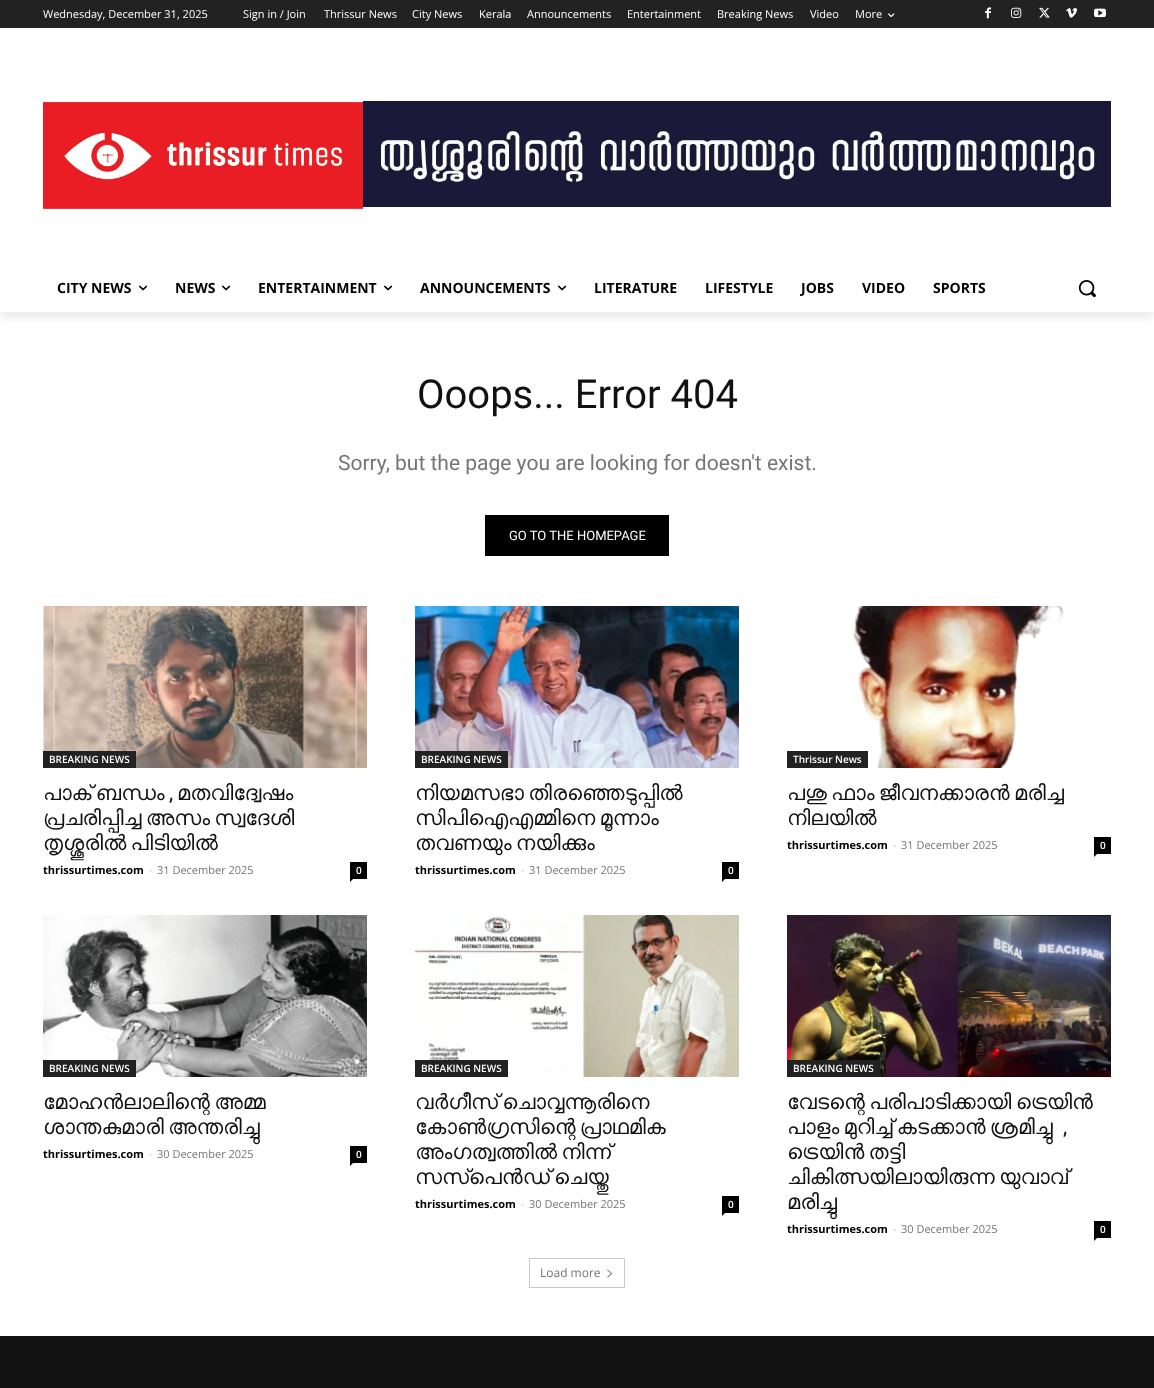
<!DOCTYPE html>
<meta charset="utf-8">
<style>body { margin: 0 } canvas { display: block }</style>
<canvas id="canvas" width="1154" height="1388"></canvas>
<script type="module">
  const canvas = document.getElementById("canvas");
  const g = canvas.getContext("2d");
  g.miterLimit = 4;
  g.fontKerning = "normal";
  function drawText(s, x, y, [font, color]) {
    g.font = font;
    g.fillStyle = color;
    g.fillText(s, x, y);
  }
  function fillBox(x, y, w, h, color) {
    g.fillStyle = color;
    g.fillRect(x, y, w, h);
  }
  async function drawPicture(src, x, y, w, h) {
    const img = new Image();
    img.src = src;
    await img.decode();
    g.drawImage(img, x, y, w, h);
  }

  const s1 = ["11px Open Sans", "#FFFFFF"];
  const s2 = ["bold 14px Open Sans", "#000000"];
  const s3 = ["40px Roboto", "#111111"];
  const s4 = ["21px Roboto", "#757575"];
  const s5 = ["13px Roboto", "#FFFFFF"];
  const s6 = ["600 10px Open Sans", "#FFFFFF"];
  const s7 = ["21px FreeSans", "#111111"];
  const s8 = ["21px Roboto", "#111111"];
  const s9 = ["bold 11px Open Sans", "#000000"];
  const s10 = ["11px Open Sans", "#CCCCCC"];
  const s11 = ["11px Open Sans", "#757575"];
  const s12 = ["12px Open Sans", "#757575"];

  fillBox(0, 0, 1154, 1388, "#FFFFFF");
  fillBox(0, 0, 1154, 28, "#222222");
  await drawPicture("pic2.png", 985, 7, 6, 12);
  await drawPicture("pic3.png", 1011, 7, 11, 11);
  await drawPicture("pic4.png", 1039, 7, 11, 11);
  await drawPicture("pic5.png", 1066, 8, 11, 10);
  await drawPicture("pic6.png", 1094, 8, 12, 10);
  await drawPicture("pic7.png", 43, 102, 320, 107);
  await drawPicture("pic8.png", 363, 101, 748, 106);
  g.save();
  g.beginPath();
  g.rect(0, 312, 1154, 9);
  g.clip();
  g.fillStyle = "rgba(0, 0, 0, 0.08)";
  g.filter = "blur(4px)";
  g.beginPath();
  g.rect(0, 6, 1154, 312);
  g.fill();
  g.filter = "none";
  g.restore();
  drawText("Wednesday, December 31, 2025", 43, 18, s1);
  drawText("Sign in / Join", 243, 18, s1);
  drawText("Thrissur News", 324, 18, s1);
  drawText("City News", 412, 18, s1);
  drawText("Kerala", 479, 18, s1);
  drawText("Announcements", 527, 18, s1);
  drawText("Entertainment", 627, 18, s1);
  drawText("Breaking News", 717, 18, s1);
  drawText("Video", 810, 18, s1);
  drawText("More", 855, 18, s1);
  await drawPicture("pic1.png", 888, 13, 7, 5);
  drawText("CITY NEWS", 57, 293, s2);
  await drawPicture("pic9.png", 139, 285, 9, 6);
  drawText("NEWS", 175, 293, s2);
  await drawPicture("pic9.png", 222, 285, 9, 6);
  drawText("ENTERTAINMENT", 258, 293, s2);
  await drawPicture("pic9.png", 384, 285, 9, 6);
  drawText("ANNOUNCEMENTS", 420, 293, s2);
  await drawPicture("pic9.png", 558, 285, 9, 6);
  drawText("LITERATURE", 594, 293, s2);
  drawText("LIFESTYLE", 705, 293, s2);
  drawText("JOBS", 801, 293, s2);
  drawText("VIDEO", 862, 293, s2);
  drawText("SPORTS", 933, 293, s2);
  await drawPicture("pic10.png", 1078, 280, 18, 18);
  drawText("Ooops... Error 404", 417, 408, s3);
  drawText("Sorry, but the page you are looking for doesn't exist.", 338, 470, s4);
  fillBox(485, 515, 184, 41, "#000000");
  drawText("GO TO THE HOMEPAGE", 509, 540, s5);
  await drawPicture("pic11.png", 43, 606, 324, 162);
  fillBox(43, 751, 93, 17, "#222222");
  drawText("BREAKING NEWS", 49, 763, s6);
  g.wordSpacing = "-1px";
  drawText("പാക് ബന്ധം", 43, 800, s7);
  g.wordSpacing = "0px";
  drawText(",", 169, 800, s8);
  drawText("മതവിദ്വേഷം", 177, 800, s7);
  g.wordSpacing = "-1px";
  drawText("പ്രചരിപ്പിച്ച അസം സ്വദേശി", 43, 825, s7);
  drawText("തൃശ്ശൂരിൽ പിടിയിൽ", 43, 850, s7);
  g.wordSpacing = "0px";
  drawText("thrissurtimes.com", 43, 874, s9);
  drawText("-", 149, 874, s10);
  drawText("31 December 2025", 157, 874, s11);
  fillBox(350, 862, 17, 17, "#000000");
  drawText("0", 356, 874, s6);
  g.fillStyle = "#000000";
  g.beginPath();
  g.moveTo(350, 879);
  g.lineTo(353, 879);
  g.lineTo(350, 882);
  g.closePath();
  g.fill();
  await drawPicture("pic12.png", 415, 606, 324, 162);
  fillBox(415, 751, 93, 17, "#222222");
  drawText("BREAKING NEWS", 421, 763, s6);
  g.wordSpacing = "-1px";
  drawText("നിയമസഭാ തിരഞ്ഞെടുപ്പില്‍", 415, 800, s7);
  drawText("സിപിഐഎമ്മിനെ മൂന്നാം", 415, 825, s7);
  drawText("തവണയും നയിക്കും", 415, 850, s7);
  g.wordSpacing = "0px";
  drawText("thrissurtimes.com", 415, 874, s9);
  drawText("-", 521, 874, s10);
  drawText("31 December 2025", 529, 874, s11);
  fillBox(722, 862, 17, 17, "#000000");
  drawText("0", 728, 874, s6);
  g.fillStyle = "#000000";
  g.beginPath();
  g.moveTo(722, 879);
  g.lineTo(725, 879);
  g.lineTo(722, 882);
  g.closePath();
  g.fill();
  await drawPicture("pic13.png", 853, 606, 211, 162);
  fillBox(787, 751, 81, 17, "#222222");
  drawText("Thrissur News", 793, 763, s6);
  g.wordSpacing = "-1px";
  drawText("പശു ഫാം ജീവനക്കാരൻ മരിച്ച", 787, 800, s7);
  g.wordSpacing = "0px";
  drawText("നിലയിൽ", 787, 825, s7);
  drawText("thrissurtimes.com", 787, 849, s9);
  drawText("-", 893, 849, s10);
  drawText("31 December 2025", 901, 849, s11);
  fillBox(1094, 837, 17, 17, "#000000");
  drawText("0", 1100, 849, s6);
  g.fillStyle = "#000000";
  g.beginPath();
  g.moveTo(1094, 854);
  g.lineTo(1097, 854);
  g.lineTo(1094, 857);
  g.closePath();
  g.fill();
  await drawPicture("pic14.png", 43, 915, 324, 162);
  fillBox(43, 1060, 93, 17, "#222222");
  drawText("BREAKING NEWS", 49, 1072, s6);
  g.wordSpacing = "-1px";
  drawText("മോഹന്‍ലാലിന്റെ അമ്മ", 43, 1109, s7);
  drawText("ശാന്തകുമാരി അന്തരിച്ചു", 43, 1134, s7);
  g.wordSpacing = "0px";
  drawText("thrissurtimes.com", 43, 1158, s9);
  drawText("-", 149, 1158, s10);
  drawText("30 December 2025", 157, 1158, s11);
  fillBox(350, 1146, 17, 17, "#000000");
  drawText("0", 356, 1158, s6);
  g.fillStyle = "#000000";
  g.beginPath();
  g.moveTo(350, 1163);
  g.lineTo(353, 1163);
  g.lineTo(350, 1166);
  g.closePath();
  g.fill();
  await drawPicture("pic15.png", 415, 915, 324, 162);
  fillBox(415, 1060, 93, 17, "#222222");
  drawText("BREAKING NEWS", 421, 1072, s6);
  g.wordSpacing = "-1px";
  drawText("വർഗീസ് ചൊവ്വന്നൂരിനെ", 415, 1109, s7);
  drawText("കോൺഗ്രസിന്റെ പ്രാഥമിക", 415, 1134, s7);
  drawText("അംഗത്വത്തിൽ നിന്ന്", 415, 1159, s7);
  drawText("സസ്‌പെൻഡ് ചെയ്തു", 415, 1184, s7);
  g.wordSpacing = "0px";
  drawText("thrissurtimes.com", 415, 1208, s9);
  drawText("-", 521, 1208, s10);
  drawText("30 December 2025", 529, 1208, s11);
  fillBox(722, 1196, 17, 17, "#000000");
  drawText("0", 728, 1208, s6);
  g.fillStyle = "#000000";
  g.beginPath();
  g.moveTo(722, 1213);
  g.lineTo(725, 1213);
  g.lineTo(722, 1216);
  g.closePath();
  g.fill();
  await drawPicture("pic16.png", 787, 915, 324, 162);
  fillBox(787, 1060, 93, 17, "#222222");
  drawText("BREAKING NEWS", 793, 1072, s6);
  g.wordSpacing = "-1px";
  drawText("വേടന്റെ പരിപാടിക്കായി ട്രെയിൻ", 787, 1109, s7);
  drawText("പാളം മുറിച്ച് കടക്കാൻ ശ്രമിച്ചു", 787, 1134, s7);
  g.wordSpacing = "0px";
  drawText(",", 1063, 1134, s8);
  g.wordSpacing = "-1px";
  drawText("ട്രെയിൻ തട്ടി", 787, 1159, s7);
  drawText("ചികിത്സയിലായിരുന്ന യുവാവ്", 787, 1184, s7);
  g.wordSpacing = "0px";
  drawText("മരിച്ചു", 787, 1209, s7);
  drawText("thrissurtimes.com", 787, 1233, s9);
  drawText("-", 893, 1233, s10);
  drawText("30 December 2025", 901, 1233, s11);
  fillBox(1094, 1221, 17, 17, "#000000");
  drawText("0", 1100, 1233, s6);
  g.fillStyle = "#000000";
  g.beginPath();
  g.moveTo(1094, 1238);
  g.lineTo(1097, 1238);
  g.lineTo(1094, 1241);
  g.closePath();
  g.fill();
  g.strokeStyle = "#C9C9C9";
  g.strokeRect(529.5, 1258.5, 95, 29);
  drawText("Load more", 540, 1277, s12);
  await drawPicture("pic17.png", 607, 1269, 6, 9);
  fillBox(0, 1336, 1154, 52, "#111111");
</script>
